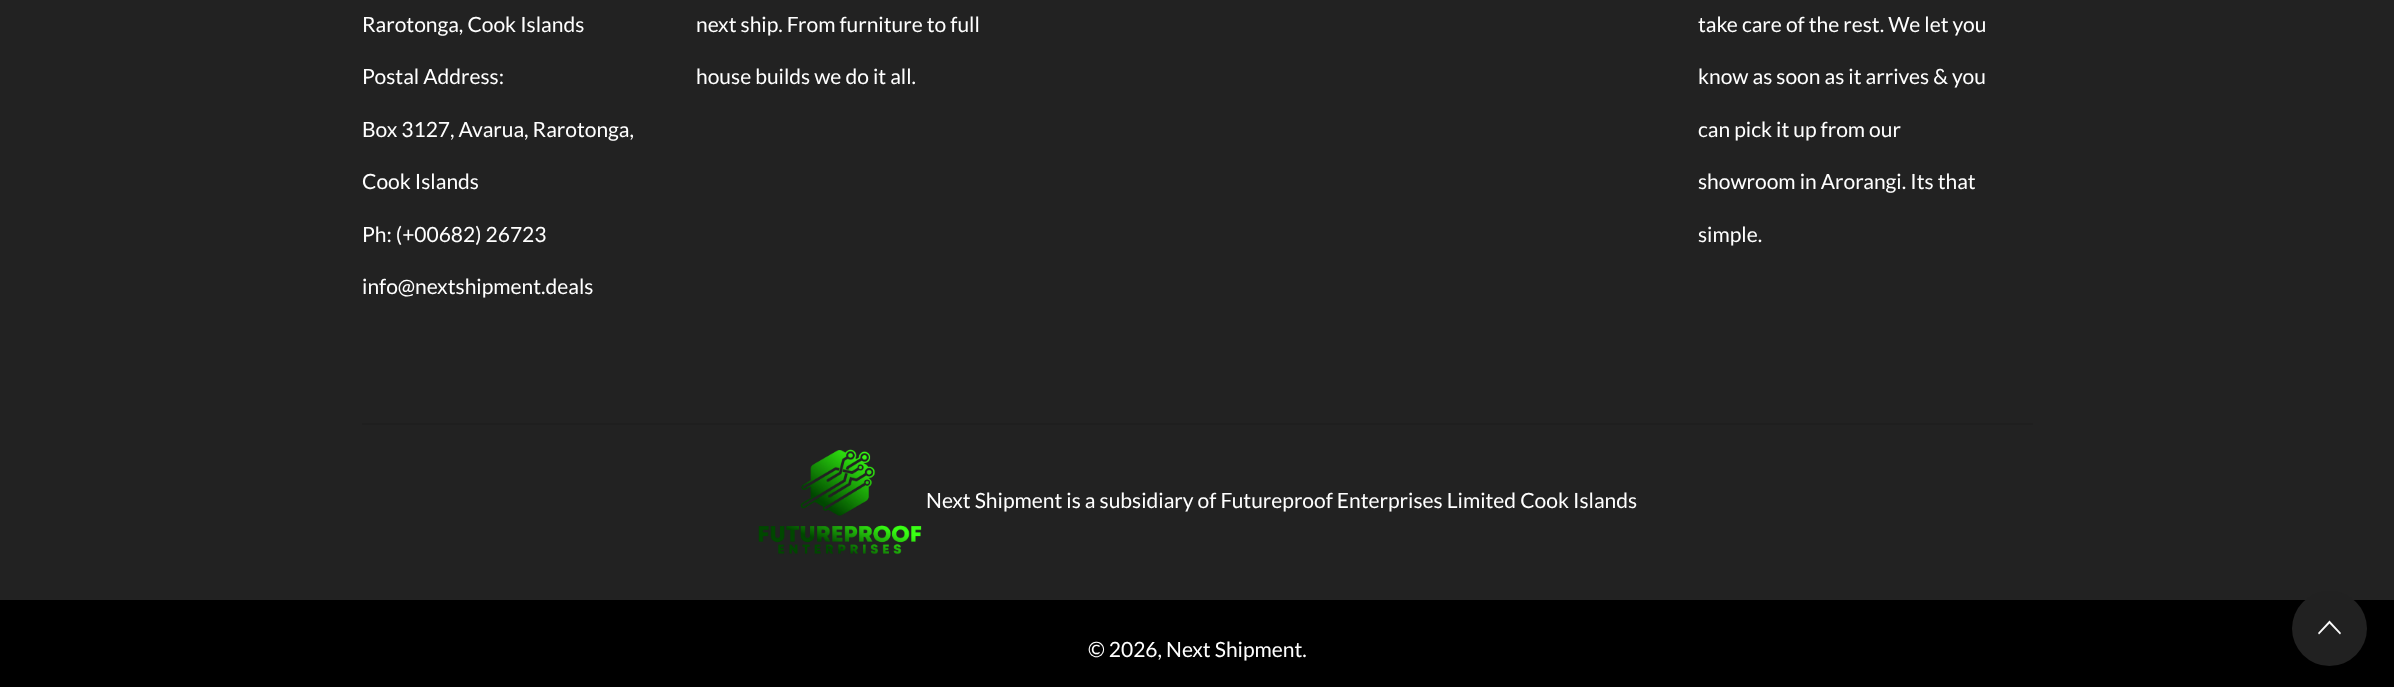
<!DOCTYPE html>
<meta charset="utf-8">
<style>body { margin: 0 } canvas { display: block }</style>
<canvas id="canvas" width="2394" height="687"></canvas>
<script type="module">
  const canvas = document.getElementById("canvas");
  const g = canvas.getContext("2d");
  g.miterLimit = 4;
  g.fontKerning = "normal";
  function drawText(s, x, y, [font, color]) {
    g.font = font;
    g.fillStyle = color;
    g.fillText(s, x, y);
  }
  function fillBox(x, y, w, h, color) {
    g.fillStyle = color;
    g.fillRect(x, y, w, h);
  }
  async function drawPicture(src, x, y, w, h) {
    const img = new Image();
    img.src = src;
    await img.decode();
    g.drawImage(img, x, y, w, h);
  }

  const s1 = ["21px Lato", "#FFFFFF"];

  fillBox(0, 0, 2394, 687, "#222222");
  drawText("Rarotonga, Cook Islands", 362, 32, s1);
  drawText("Postal Address:", 362, 84, s1);
  drawText("Box 3127, Avarua, Rarotonga,", 362, 137, s1);
  drawText("Cook Islands", 362, 189, s1);
  drawText("Ph: (+00682) 26723", 362, 242, s1);
  drawText("info@nextshipment.deals", 362, 294, s1);
  drawText("next ship. From furniture to full", 696, 32, s1);
  drawText("house builds we do it all.", 696, 84, s1);
  drawText("take care of the rest. We let you", 1698, 32, s1);
  drawText("know as soon as it arrives & you", 1698, 84, s1);
  drawText("can pick it up from our", 1698, 137, s1);
  drawText("showroom in Arorangi. Its that", 1698, 189, s1);
  drawText("simple.", 1698, 242, s1);
  fillBox(362, 423, 1671, 2, "#1F1F1F");
  await drawPicture("pic1.png", 758, 449, 164, 106);
  drawText("Next Shipment is a subsidiary of Futureproof Enterprises Limited Cook Islands", 926, 508, s1);
  fillBox(0, 600, 2394, 87, "#000000");
  drawText("© 2026, Next Shipment.", 1088, 657, s1);
  g.fillStyle = "rgba(34, 34, 34, 0.98)";
  g.beginPath();
  g.arc(2329.5, 628.5, 37.5, 0, Math.PI * 2);
  g.fill();
  g.fillStyle = "#FAFAFA";
  g.beginPath();
  g.moveTo(2340, 634.5);
  g.lineTo(2341, 633);
  g.lineTo(2329.5, 620.5);
  g.lineTo(2318, 633);
  g.lineTo(2319, 634.5);
  g.lineTo(2329.5, 623.5);
  g.closePath();
  g.fill();
</script>
